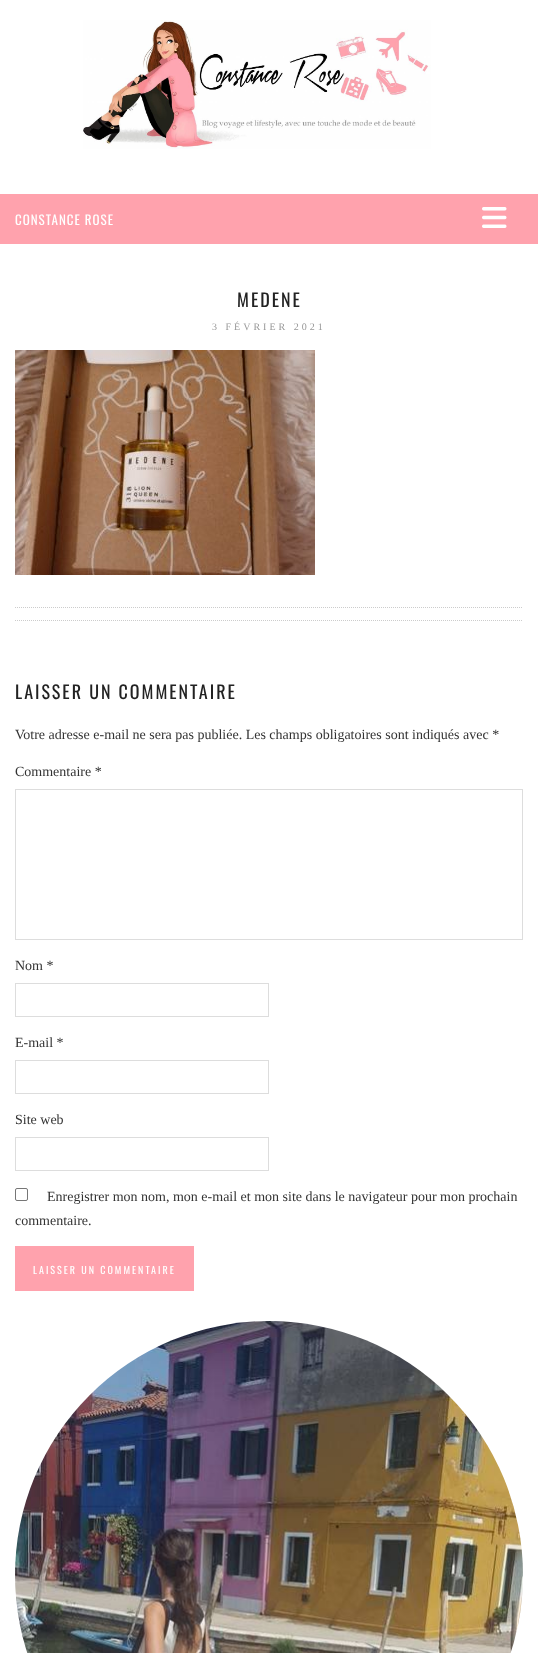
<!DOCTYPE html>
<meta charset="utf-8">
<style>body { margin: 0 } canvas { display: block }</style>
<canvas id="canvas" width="538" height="1653"></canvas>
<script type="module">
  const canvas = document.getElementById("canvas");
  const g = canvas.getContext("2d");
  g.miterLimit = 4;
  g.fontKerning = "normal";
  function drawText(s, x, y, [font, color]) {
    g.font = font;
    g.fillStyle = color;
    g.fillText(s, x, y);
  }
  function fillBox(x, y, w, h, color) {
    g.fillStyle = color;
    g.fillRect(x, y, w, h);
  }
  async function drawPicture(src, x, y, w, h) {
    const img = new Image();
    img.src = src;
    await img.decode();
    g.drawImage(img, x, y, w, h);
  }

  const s1 = ["13px Oswald", "#FFFFFF"];
  const s2 = ["18px Oswald", "#222222"];
  const s3 = ["10px Liberation Serif", "#999999"];
  const s4 = ["14px Liberation Serif", "#333333"];
  const s5 = ["10px Oswald", "#FFFFFF"];

  fillBox(0, 0, 538, 1653, "#FFFFFF");
  await drawPicture("pic1.png", 83, 20, 348, 129);
  fillBox(0, 194, 538, 50, "#FFA2AD");
  g.letterSpacing = "1px";
  drawText("CONSTANCE ROSE", 15, 225, s1);
  await drawPicture("pic2.png", 482, 207, 25, 21);
  g.letterSpacing = "2px";
  drawText("MEDENE", 237, 307, s2);
  g.letterSpacing = "3px";
  drawText("3 FÉVRIER 2021", 212, 330, s3);
  await drawPicture("pic3.png", 15, 350, 300, 225);
  g.beginPath();
  g.moveTo(15, 607.5);
  g.lineTo(523, 607.5);
  g.strokeStyle = "#CCCCCC";
  g.setLineDash([1, 1]);
  g.stroke();
  g.beginPath();
  g.moveTo(15, 620.5);
  g.lineTo(523, 620.5);
  g.stroke();
  g.letterSpacing = "2px";
  drawText("LAISSER UN COMMENTAIRE", 15, 699, s2);
  g.letterSpacing = "0px";
  drawText("Votre adresse e-mail ne sera pas publiée. Les champs obligatoires sont indiqués avec *", 15, 739, s4);
  drawText("Commentaire *", 15, 776, s4);
  g.strokeStyle = "#DDDDDD";
  g.setLineDash([]);
  g.strokeRect(15.5, 789.5, 507, 150);
  drawText("Nom *", 15, 970, s4);
  g.strokeRect(15.5, 983.5, 253, 33);
  drawText("E-mail *", 15, 1047, s4);
  g.strokeRect(15.5, 1060.5, 253, 33);
  drawText("Site web", 15, 1124, s4);
  g.strokeRect(15.5, 1137.5, 253, 33);
  g.beginPath();
  g.roundRect(15.5, 1188.5, 12, 12, 1.5);
  g.strokeStyle = "#767676";
  g.stroke();
  drawText("Enregistrer mon nom, mon e-mail et mon site dans le navigateur pour mon prochain", 47, 1201, s4);
  drawText("commentaire.", 15, 1225, s4);
  fillBox(15, 1246, 179, 45, "#FFA2AD");
  g.letterSpacing = "2px";
  drawText("LAISSER UN COMMENTAIRE", 33, 1274, s5);
  await drawPicture("pic4.png", 15, 1321, 508, 332);
</script>
